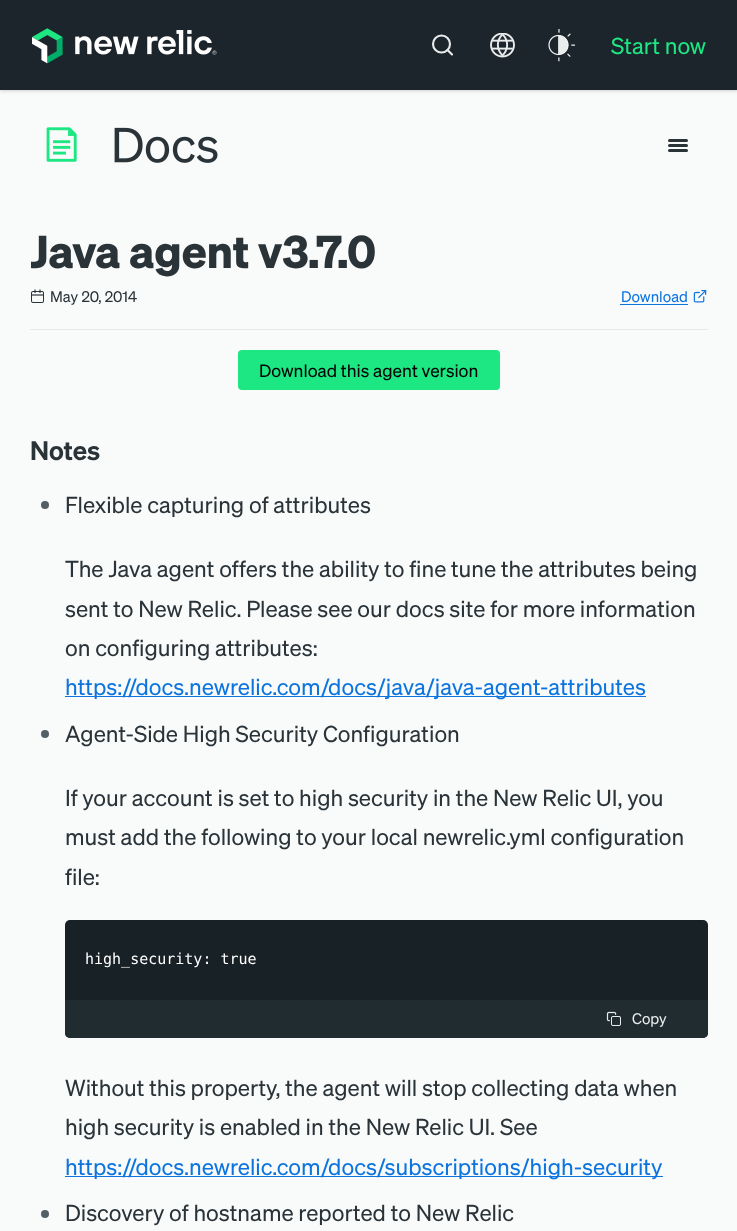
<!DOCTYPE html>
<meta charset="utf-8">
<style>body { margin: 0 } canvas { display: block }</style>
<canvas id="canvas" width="737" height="1231"></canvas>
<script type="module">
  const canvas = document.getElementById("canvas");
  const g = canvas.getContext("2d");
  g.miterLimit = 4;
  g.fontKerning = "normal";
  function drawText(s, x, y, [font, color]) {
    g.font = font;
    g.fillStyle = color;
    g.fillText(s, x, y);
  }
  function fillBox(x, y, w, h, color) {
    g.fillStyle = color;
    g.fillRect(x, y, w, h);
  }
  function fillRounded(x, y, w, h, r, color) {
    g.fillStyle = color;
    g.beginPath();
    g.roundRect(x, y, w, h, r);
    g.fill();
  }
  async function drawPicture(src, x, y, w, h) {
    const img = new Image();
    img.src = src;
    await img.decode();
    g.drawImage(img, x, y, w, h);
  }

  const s1 = ["22.5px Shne", "#1CE783"];
  const s2 = ["bold 45px Shne", "#293338"];
  const s3 = ["15px Shne", "#293338"];
  const s4 = ["15px Shne", "#0C74DF"];
  const s5 = ["17.5px Shne", "#000000"];
  const s6 = ["600 26px Shne", "#293338"];
  const s7 = ["22.5px Shne", "#293338"];
  const s8 = ["22.5px Shne", "#0C74DF"];
  const s9 = ["15px DejaVu Sans Mono", "#FFFFFF"];
  const s10 = ["15px Shne", "#E9ECEC"];

  fillBox(0, 0, 737, 1231, "#F9FAFA");
  g.fillStyle = "rgba(0, 0, 0, 0.06)";
  g.filter = "blur(1px)";
  g.beginPath();
  g.rect(0, 1, 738, 90);
  g.fill();
  g.filter = "none";
  g.fillStyle = "rgba(0, 0, 0, 0.1)";
  g.filter = "blur(2px)";
  g.beginPath();
  g.rect(0, 1, 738, 90);
  g.fill();
  g.filter = "none";
  fillBox(0, 0, 737, 90, "#1D252C");
  await drawPicture("pic1.png", 32, 28, 185, 36);
  g.beginPath();
  g.arc(441.5, 44, 8.5, 0, Math.PI * 2);
  g.strokeStyle = "#E9ECEC";
  g.lineWidth = 2.1;
  g.stroke();
  g.beginPath();
  g.moveTo(452, 54.5);
  g.lineTo(447.5, 50);
  g.lineCap = "round";
  g.lineJoin = "round";
  g.stroke();
  await drawPicture("pic2.png", 490, 33, 25, 25);
  await drawPicture("pic3.png", 548, 29, 28, 33);
  drawText("Start now", 611, 54, s1);
  await drawPicture("pic4.png", 46, 127, 172, 36);
  fillRounded(668, 139, 20, 3, 1.5, "#293338");
  fillRounded(668, 144, 20, 3, 1.5, "#293338");
  fillRounded(668, 149, 20, 3, 1.5, "#293338");
  drawText("Java agent v3.7.0", 30, 268, s2);
  fillBox(30, 329, 678, 1, "#E8E8E8");
  await drawPicture("pic5.png", 31, 289, 13, 14);
  drawText("May 20, 2014", 50, 302, s3);
  drawText("Download", 621, 302, s4);
  fillBox(620, 304, 68, 1, "#0C74DF");
  await drawPicture("pic6.png", 693, 290, 14, 13);
  fillRounded(238, 350, 262, 40, 4, "#1CE783");
  drawText("Download this agent version", 259, 377, s5);
  drawText("Notes", 30, 460, s6);
  g.fillStyle = "#535E65";
  g.beginPath();
  g.arc(45, 505, 4, 0, Math.PI * 2);
  g.fill();
  drawText("Flexible capturing of attributes", 65, 513, s7);
  drawText("The Java agent offers the ability to fine tune the attributes being", 65, 577, s7);
  drawText("sent to New Relic. Please see our docs site for more information", 65, 617, s7);
  drawText("on configuring attributes:", 65, 656, s7);
  fillBox(65, 696, 581, 1, "#0C74DF");
  drawText("https://docs.newrelic.com/docs/java/java-agent-attributes", 65, 695, s8);
  g.fillStyle = "#535E65";
  g.beginPath();
  g.arc(45, 734, 4, 0, Math.PI * 2);
  g.fill();
  drawText("Agent-Side High Security Configuration", 65, 742, s7);
  drawText("If your account is set to high security in the New Relic UI, you", 65, 806, s7);
  drawText("must add the following to your local newrelic.yml configuration", 65, 845, s7);
  drawText("file:", 65, 885, s7);
  fillRounded(65, 920, 643, 118, 5, "#182125");
  drawText("high_security: true", 85, 964, s9);
  g.fillStyle = "#212C31";
  g.beginPath();
  g.roundRect(65, 1000, 643, 38, [0, 0, 5, 5]);
  g.fill();
  await drawPicture("pic7.png", 606, 1011, 15, 15);
  drawText("Copy", 632, 1024, s10);
  drawText("Without this property, the agent will stop collecting data when", 65, 1096, s7);
  drawText("high security is enabled in the New Relic UI. See", 65, 1135, s7);
  fillBox(65, 1176, 598, 1, "#0C74DF");
  drawText("https://docs.newrelic.com/docs/subscriptions/high-security", 65, 1175, s8);
  g.fillStyle = "#535E65";
  g.beginPath();
  g.arc(45, 1214, 4, 0, Math.PI * 2);
  g.fill();
  drawText("Discovery of hostname reported to New Relic", 65, 1221, s7);
</script>
